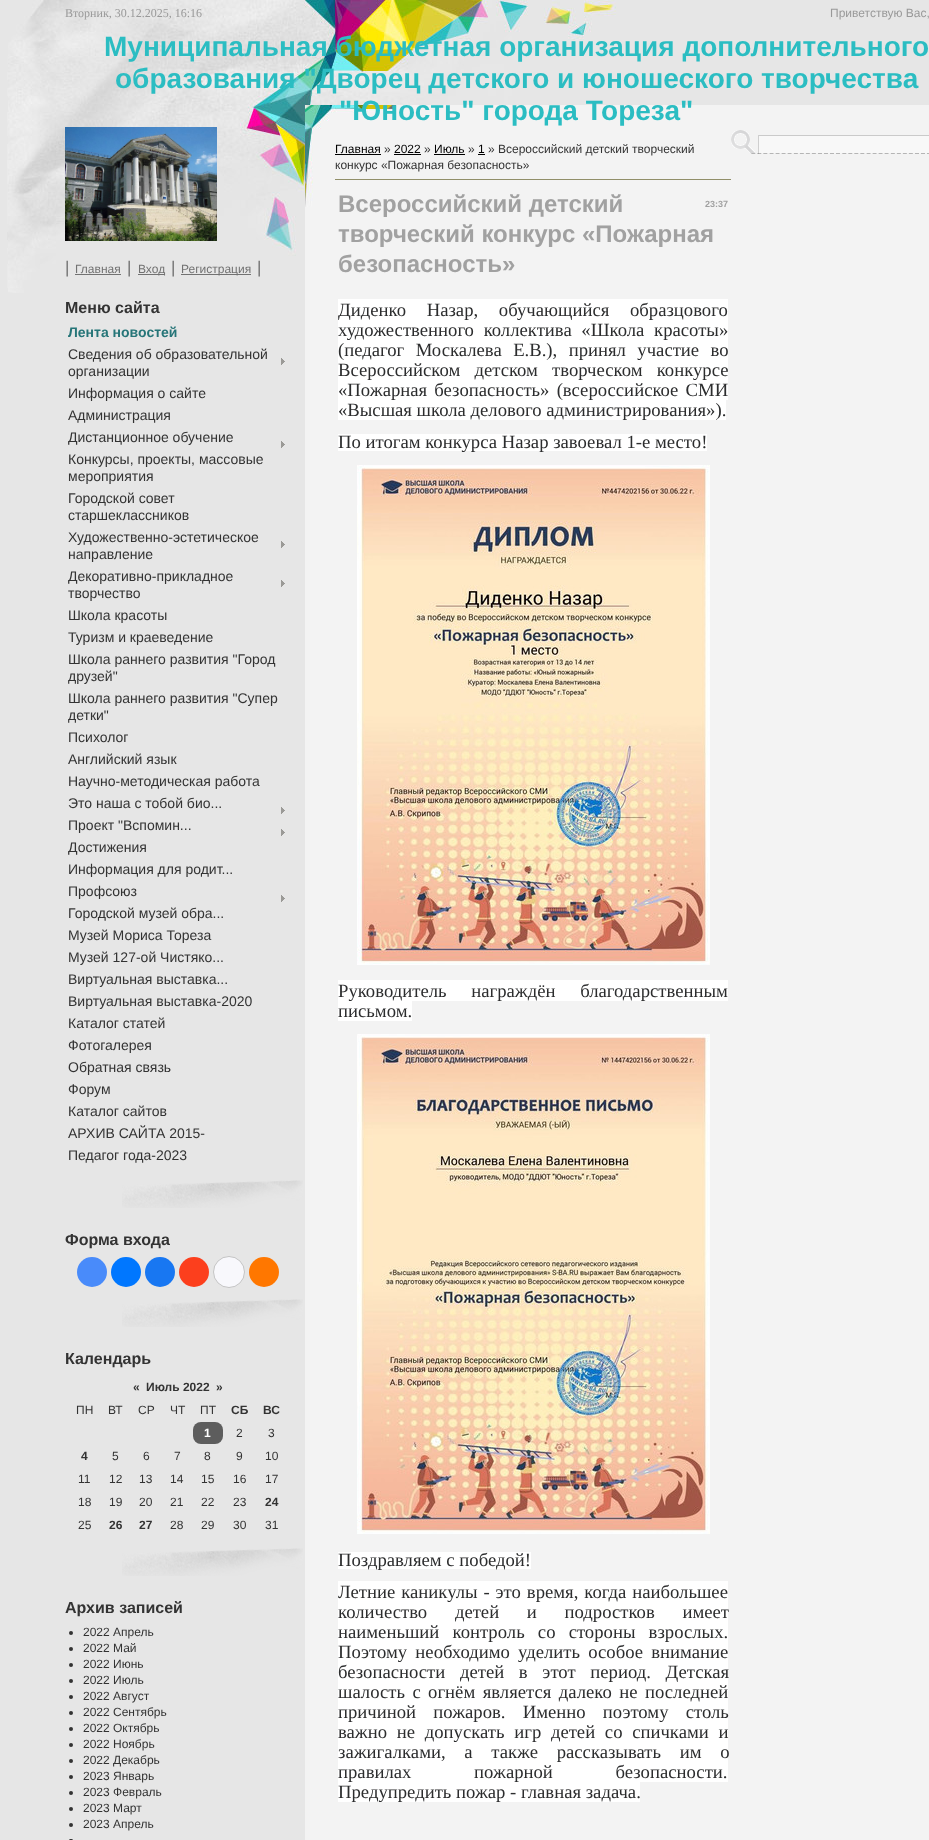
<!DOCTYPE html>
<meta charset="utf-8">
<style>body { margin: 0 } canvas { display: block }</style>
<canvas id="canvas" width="929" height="1840"></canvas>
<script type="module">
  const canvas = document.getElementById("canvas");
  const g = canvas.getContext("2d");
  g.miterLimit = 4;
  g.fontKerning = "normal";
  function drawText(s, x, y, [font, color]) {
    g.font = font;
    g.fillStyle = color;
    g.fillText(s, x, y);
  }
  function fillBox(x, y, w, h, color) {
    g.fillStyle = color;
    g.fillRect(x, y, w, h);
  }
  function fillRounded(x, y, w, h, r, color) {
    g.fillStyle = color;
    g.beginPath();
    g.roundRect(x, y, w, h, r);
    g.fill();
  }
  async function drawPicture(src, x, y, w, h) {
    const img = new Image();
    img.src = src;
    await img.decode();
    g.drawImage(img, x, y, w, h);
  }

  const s1 = ["12px Liberation Serif", "#999999"];
  const s2 = ["12px Liberation Sans", "#999999"];
  const s3 = ["bold 28px Liberation Sans", "#2BBDC2"];
  const s4 = ["17px Liberation Sans", "#727272"];
  const s5 = ["12px Liberation Sans", "#727272"];
  const s6 = ["bold 16px Liberation Sans", "#333333"];
  const s7 = ["bold 14px Liberation Sans", "#267578"];
  const s8 = ["14px Liberation Sans", "#333333"];
  const s9 = ["bold 12px Liberation Sans", "#333333"];
  const s10 = ["12px Liberation Sans", "#333333"];
  const s11 = ["bold 12px Liberation Sans", "#FFFFFF"];
  const s12 = ["12px Liberation Sans", "#000000"];
  const s13 = ["bold 24px Liberation Sans", "#A1A1A1"];
  const s14 = ["bold 9px Liberation Sans", "#A1A1A1"];
  const s15 = ["18.7px Liberation Serif", "#2C2D2E"];

  fillBox(0, 0, 929, 1840, "#E6E6E6");
  await drawPicture("pic1.png", 7, 0, 609, 293);
  drawText("Вторник, 30.12.2025, 16:16", 65, 17, s1);
  drawText("Приветствую Вас,", 830, 17, s2);
  drawText("Муниципальная бюджетная организация дополнительного", 104, 56, s3);
  drawText("образования \"Дворец детского и юношеского творчества", 115, 88, s3);
  fillBox(305, 105, 624, 1735, "#F3F3F3");
  await drawPicture("pic5.png", 305, 105, 91, 102);
  drawText("\"Юность\" города Тореза\"", 339, 120, s3);
  await drawPicture("pic2.png", 65, 127, 152, 114);
  drawText("|", 65, 273, s4);
  drawText("Главная", 75, 273, s5);
  fillBox(75, 274, 46, 1, "#727272");
  drawText("|", 127, 273, s4);
  fillBox(138, 274, 27, 1, "#727272");
  drawText("Вход", 138, 273, s5);
  drawText("|", 171, 273, s4);
  fillBox(181, 274, 70, 1, "#727272");
  drawText("Регистрация", 181, 273, s5);
  drawText("|", 257, 273, s4);
  await drawPicture("pic3.png", 122, 1180, 181, 28);
  drawText("Меню сайта", 65, 313, s6);
  drawText("Лента новостей", 68, 337, s7);
  drawText("Сведения об образовательной", 68, 359, s8);
  await drawPicture("pic4.png", 281, 358, 4, 7);
  drawText("организации", 68, 376, s8);
  drawText("Информация о сайте", 68, 398, s8);
  drawText("Администрация", 68, 420, s8);
  drawText("Дистанционное обучение", 68, 442, s8);
  await drawPicture("pic4.png", 281, 441, 4, 7);
  drawText("Конкурсы, проекты, массовые", 68, 464, s8);
  drawText("мероприятия", 68, 481, s8);
  drawText("Городской совет", 68, 503, s8);
  drawText("старшеклассников", 68, 520, s8);
  drawText("Художественно-эстетическое", 68, 542, s8);
  await drawPicture("pic4.png", 281, 541, 4, 7);
  drawText("направление", 68, 559, s8);
  drawText("Декоративно-прикладное", 68, 581, s8);
  await drawPicture("pic4.png", 281, 580, 4, 7);
  drawText("творчество", 68, 598, s8);
  drawText("Школа красоты", 68, 620, s8);
  drawText("Туризм и краеведение", 68, 642, s8);
  drawText("Школа раннего развития \"Город", 68, 664, s8);
  drawText("друзей\"", 68, 681, s8);
  drawText("Школа раннего развития \"Супер", 68, 703, s8);
  drawText("детки\"", 68, 720, s8);
  drawText("Психолог", 68, 742, s8);
  drawText("Английский язык", 68, 764, s8);
  drawText("Научно-методическая работа", 68, 786, s8);
  drawText("Это наша с тобой био...", 68, 808, s8);
  await drawPicture("pic4.png", 281, 807, 4, 7);
  drawText("Проект \"Вспомин...", 68, 830, s8);
  await drawPicture("pic4.png", 281, 829, 4, 7);
  drawText("Достижения", 68, 852, s8);
  drawText("Информация для родит...", 68, 874, s8);
  drawText("Профсоюз", 68, 896, s8);
  await drawPicture("pic4.png", 281, 895, 4, 7);
  drawText("Городской музей обра...", 68, 918, s8);
  drawText("Музей Мориса Тореза", 68, 940, s8);
  drawText("Музей 127-ой Чистяко...", 68, 962, s8);
  drawText("Виртуальная выставка...", 68, 984, s8);
  drawText("Виртуальная выставка-2020", 68, 1006, s8);
  drawText("Каталог статей", 68, 1028, s8);
  drawText("Фотогалерея", 68, 1050, s8);
  drawText("Обратная связь", 68, 1072, s8);
  drawText("Форум", 68, 1094, s8);
  drawText("Каталог сайтов", 68, 1116, s8);
  drawText("АРХИВ САЙТА 2015-", 68, 1138, s8);
  drawText("Педагог года-2023", 68, 1160, s8);
  await drawPicture("pic3.png", 122, 1299, 181, 28);
  drawText("Форма входа", 65, 1245, s6);
  g.fillStyle = "#498BFA";
  g.beginPath();
  g.arc(92, 1272, 15, 0, Math.PI * 2);
  g.fill();
  g.fillStyle = "#0077FF";
  g.beginPath();
  g.arc(126, 1272, 15, 0, Math.PI * 2);
  g.fill();
  g.fillStyle = "#1877F2";
  g.beginPath();
  g.arc(160, 1272, 15, 0, Math.PI * 2);
  g.fill();
  g.fillStyle = "#FC3F1D";
  g.beginPath();
  g.arc(194, 1272, 15, 0, Math.PI * 2);
  g.fill();
  g.fillStyle = "#F8F8FC";
  g.beginPath();
  g.arc(229, 1272, 15.5, 0, Math.PI * 2);
  g.fill();
  g.strokeStyle = "#C4C4C4";
  g.stroke();
  g.fillStyle = "#FF7700";
  g.beginPath();
  g.arc(264, 1272, 15, 0, Math.PI * 2);
  g.fill();
  await drawPicture("pic3.png", 122, 1548, 181, 28);
  drawText("Календарь", 65, 1364, s6);
  drawText("«", 133, 1391, s9);
  drawText("Июль 2022", 146, 1391, s9);
  drawText("»", 216, 1391, s9);
  drawText("ПН", 76, 1414, s10);
  drawText("ВТ", 108, 1414, s10);
  drawText("СР", 138, 1414, s10);
  drawText("ЧТ", 170, 1414, s10);
  drawText("ПТ", 200, 1414, s10);
  drawText("СБ", 231, 1414, s9);
  drawText("ВС", 263, 1414, s9);
  fillRounded(193, 1422, 30, 22, 8, "#5D5D5D");
  drawText("1", 204, 1437, s11);
  drawText("2", 236, 1437, s10);
  drawText("3", 268, 1437, s10);
  drawText("4", 81, 1460, s9);
  drawText("5", 112, 1460, s10);
  drawText("6", 143, 1460, s10);
  drawText("7", 174, 1460, s10);
  drawText("8", 204, 1460, s10);
  drawText("9", 236, 1460, s10);
  drawText("10", 265, 1460, s10);
  drawText("11", 78, 1483, s10);
  drawText("12", 109, 1483, s10);
  drawText("13", 139, 1483, s10);
  drawText("14", 170, 1483, s10);
  drawText("15", 201, 1483, s10);
  drawText("16", 233, 1483, s10);
  drawText("17", 265, 1483, s10);
  drawText("18", 78, 1506, s10);
  drawText("19", 109, 1506, s10);
  drawText("20", 139, 1506, s10);
  drawText("21", 170, 1506, s10);
  drawText("22", 201, 1506, s10);
  drawText("23", 233, 1506, s10);
  drawText("24", 265, 1506, s9);
  drawText("25", 78, 1529, s10);
  drawText("26", 109, 1529, s9);
  drawText("27", 139, 1529, s9);
  drawText("28", 170, 1529, s10);
  drawText("29", 201, 1529, s10);
  drawText("30", 233, 1529, s10);
  drawText("31", 265, 1529, s10);
  drawText("Архив записей", 65, 1613, s6);
  g.beginPath();
  g.arc(71, 1633, 2, 0, Math.PI * 2);
  g.fill();
  drawText("2022 Апрель", 83, 1636, s10);
  g.beginPath();
  g.arc(71, 1649, 2, 0, Math.PI * 2);
  g.fill();
  drawText("2022 Май", 83, 1652, s10);
  g.beginPath();
  g.arc(71, 1665, 2, 0, Math.PI * 2);
  g.fill();
  drawText("2022 Июнь", 83, 1668, s10);
  g.beginPath();
  g.arc(71, 1681, 2, 0, Math.PI * 2);
  g.fill();
  drawText("2022 Июль", 83, 1684, s10);
  g.beginPath();
  g.arc(71, 1697, 2, 0, Math.PI * 2);
  g.fill();
  drawText("2022 Август", 83, 1700, s10);
  g.beginPath();
  g.arc(71, 1713, 2, 0, Math.PI * 2);
  g.fill();
  drawText("2022 Сентябрь", 83, 1716, s10);
  g.beginPath();
  g.arc(71, 1729, 2, 0, Math.PI * 2);
  g.fill();
  drawText("2022 Октябрь", 83, 1732, s10);
  g.beginPath();
  g.arc(71, 1745, 2, 0, Math.PI * 2);
  g.fill();
  drawText("2022 Ноябрь", 83, 1748, s10);
  g.beginPath();
  g.arc(71, 1761, 2, 0, Math.PI * 2);
  g.fill();
  drawText("2022 Декабрь", 83, 1764, s10);
  g.beginPath();
  g.arc(71, 1777, 2, 0, Math.PI * 2);
  g.fill();
  drawText("2023 Январь", 83, 1780, s10);
  g.beginPath();
  g.arc(71, 1793, 2, 0, Math.PI * 2);
  g.fill();
  drawText("2023 Февраль", 83, 1796, s10);
  g.beginPath();
  g.arc(71, 1809, 2, 0, Math.PI * 2);
  g.fill();
  drawText("2023 Март", 83, 1812, s10);
  g.beginPath();
  g.arc(71, 1825, 2, 0, Math.PI * 2);
  g.fill();
  drawText("2023 Апрель", 83, 1828, s10);
  fillRounded(69, 1839, 4, 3, 2, "#333333");
  drawText("Главная", 335, 153, s12);
  fillBox(335, 154, 46, 1, "#000000");
  drawText("»", 384, 153, s10);
  drawText("2022", 394, 153, s12);
  fillBox(394, 154, 27, 1, "#000000");
  drawText("»", 424, 153, s10);
  drawText("Июль", 434, 153, s12);
  fillBox(434, 154, 31, 1, "#000000");
  drawText("»", 468, 153, s10);
  drawText("1", 478, 153, s12);
  fillBox(478, 154, 7, 1, "#000000");
  drawText("» Всероссийский детский творческий", 488, 153, s10);
  drawText("конкурс «Пожарная безопасность»", 335, 169, s10);
  fillBox(335, 179, 396, 1, "#918F69");
  drawText("Всероссийский детский", 338, 212, s13);
  drawText("23:37", 705, 207, s14);
  drawText("творческий конкурс «Пожарная", 338, 242, s13);
  drawText("безопасность»", 338, 272, s13);
  fillBox(338, 299, 390, 101, "#FFFFFF");
  g.wordSpacing = "16px";
  drawText("Диденко Назар, обучающийся образцового", 338, 316, s15);
  g.wordSpacing = "5px";
  drawText("художественного коллектива «Школа красоты»", 338, 336, s15);
  g.wordSpacing = "6.75px";
  drawText("(педагог Москалева Е.В.), принял участие во", 338, 356, s15);
  g.wordSpacing = "9.5px";
  drawText("Всероссийском детском творческом конкурсе", 338, 376, s15);
  g.wordSpacing = "2.5px";
  drawText("«Пожарная безопасность» (всероссийское СМИ", 338, 396, s15);
  fillBox(338, 400, 388, 20, "#FFFFFF");
  g.wordSpacing = "0px";
  drawText("«Высшая школа делового администрирования»).", 338, 416, s15);
  fillBox(338, 434, 369, 17, "#FFFFFF");
  drawText("По итогам конкурса Назар завоевал 1-е место!", 338, 448, s15);
  await drawPicture("pic6.png", 357, 465, 353, 500);
  fillBox(338, 980, 390, 21, "#FFFFFF");
  g.wordSpacing = "20px";
  drawText("Руководитель награждён благодарственным", 338, 997, s15);
  fillBox(338, 1001, 74, 20, "#FFFFFF");
  g.wordSpacing = "0px";
  drawText("письмом.", 338, 1017, s15);
  await drawPicture("pic7.png", 357, 1034, 353, 500);
  fillBox(338, 1552, 193, 17, "#FFFFFF");
  drawText("Поздравляем с победой!", 338, 1566, s15);
  fillBox(338, 1581, 390, 201, "#FFFFFF");
  g.wordSpacing = "1.25px";
  drawText("Летние каникулы - это время, когда наибольшее", 338, 1598, s15);
  g.wordSpacing = "23px";
  drawText("количество детей и подростков имеет", 338, 1618, s15);
  g.wordSpacing = "8.5px";
  drawText("наименьший контроль со стороны взрослых.", 338, 1638, s15);
  g.wordSpacing = "3.5px";
  drawText("Поэтому необходимо уделить особое внимание", 338, 1658, s15);
  g.wordSpacing = "10px";
  drawText("безопасности детей в этот период. Детская", 338, 1678, s15);
  g.wordSpacing = "2.75px";
  drawText("шалость с огнём является далеко не последней", 338, 1698, s15);
  g.wordSpacing = "12.5px";
  drawText("причиной пожаров. Именно поэтому столь", 338, 1718, s15);
  g.wordSpacing = "5px";
  drawText("важно не допускать игр детей со спичками и", 338, 1738, s15);
  g.wordSpacing = "14px";
  drawText("зажигалками, а также рассказывать им о", 338, 1758, s15);
  g.wordSpacing = "58px";
  drawText("правилах пожарной безопасности.", 338, 1778, s15);
  fillBox(338, 1782, 302, 20, "#FFFFFF");
  g.wordSpacing = "0px";
  drawText("Предупредить пожар - главная задача.", 338, 1798, s15);
  await drawPicture("pic8.png", 731, 130, 198, 24);
</script>
